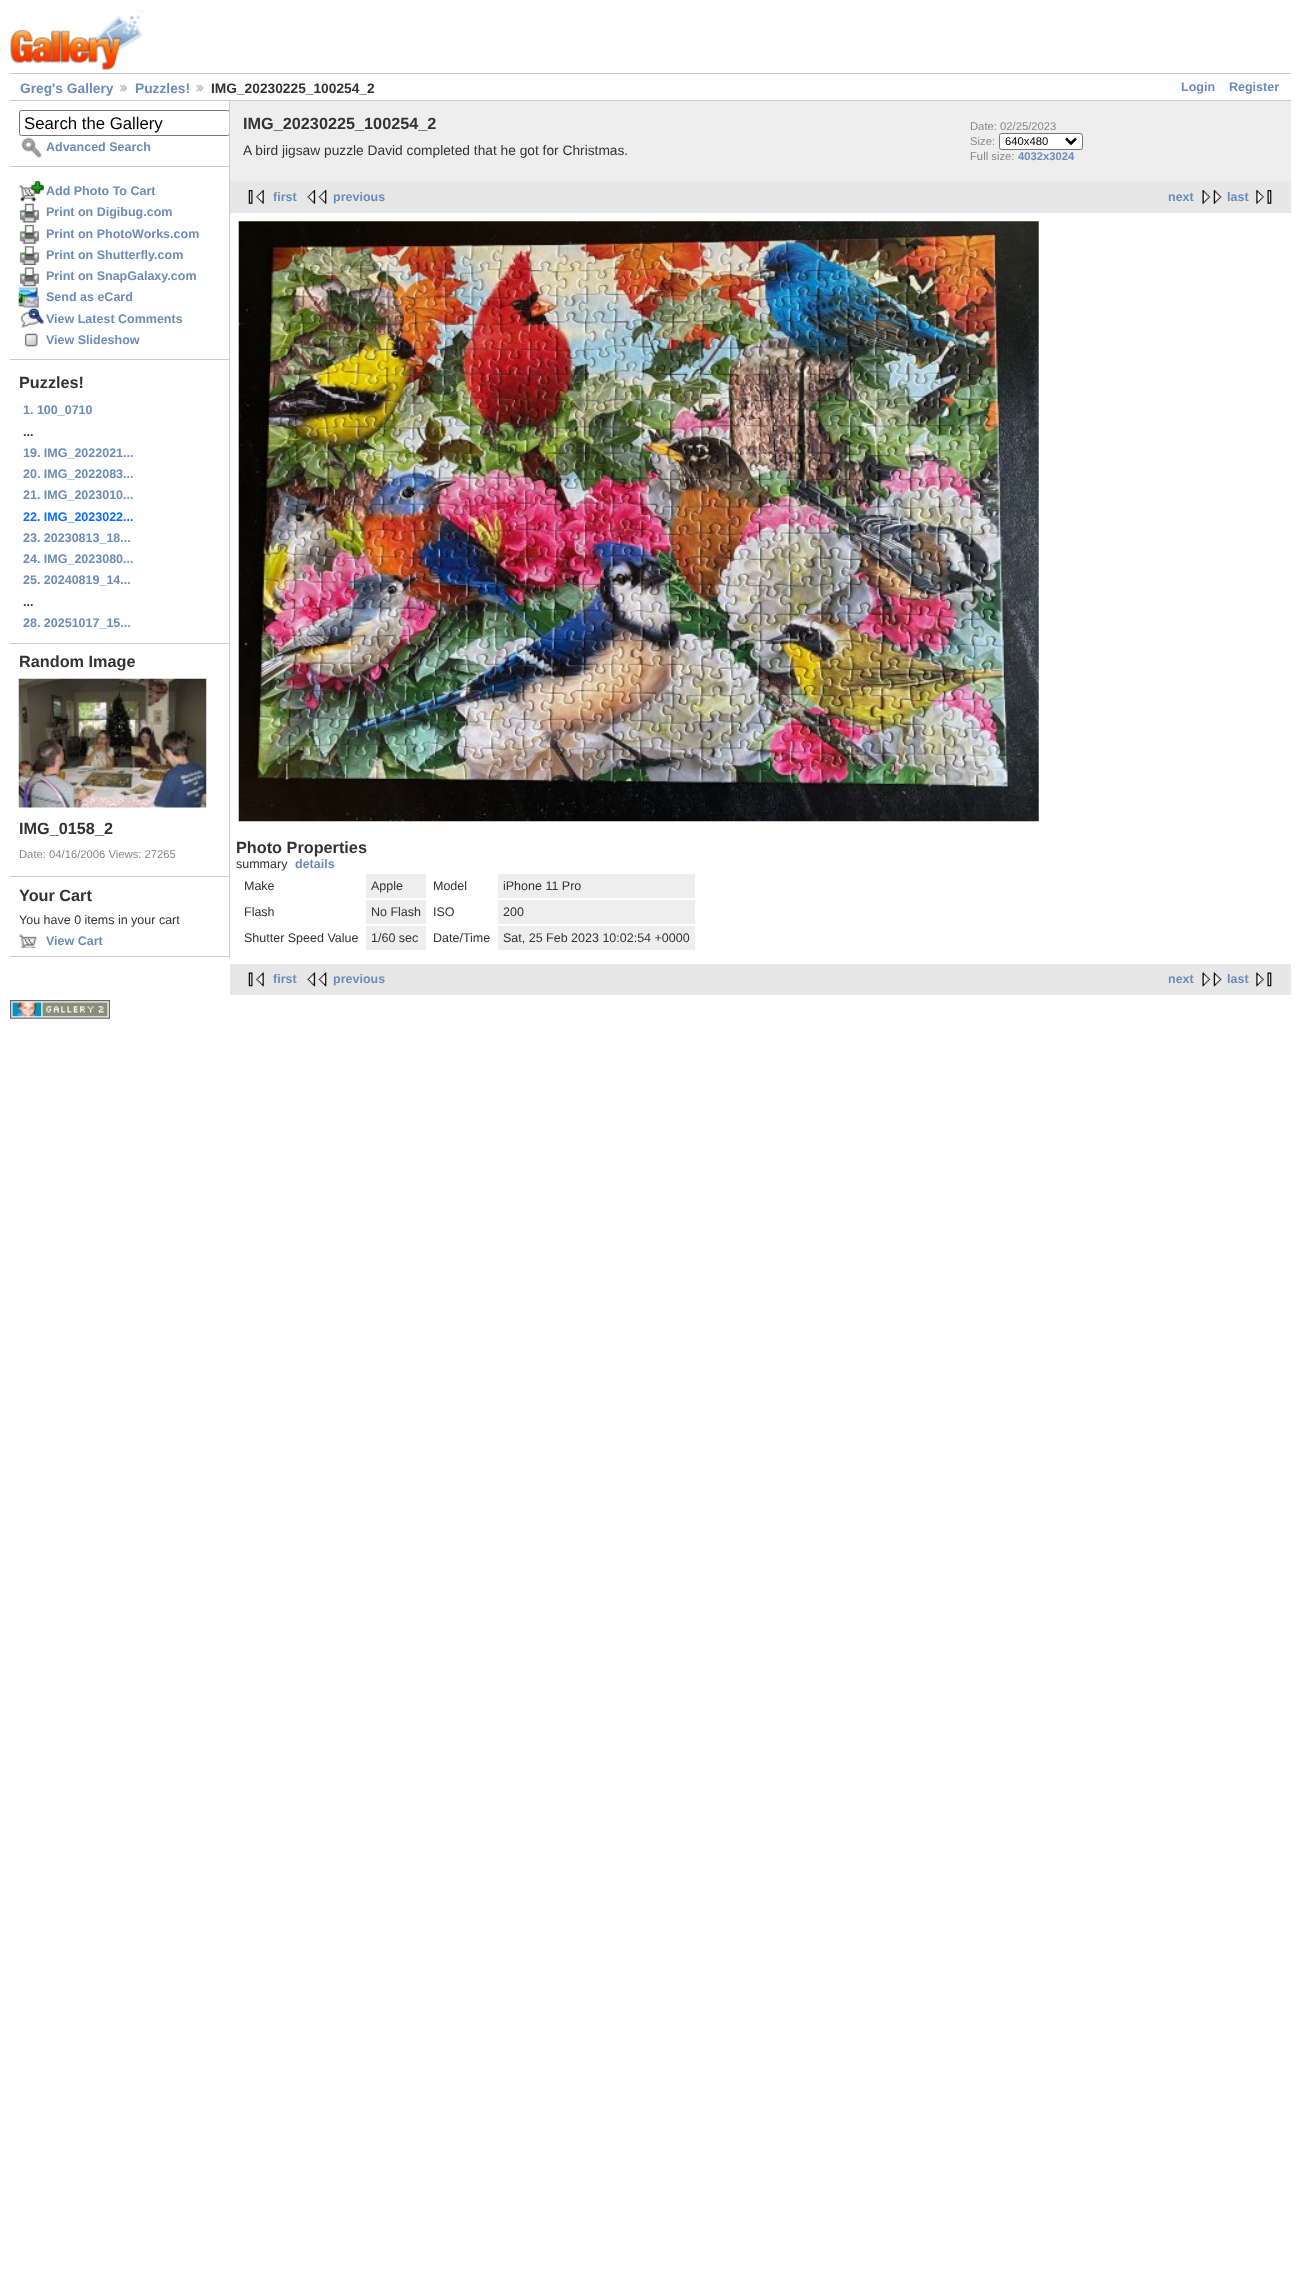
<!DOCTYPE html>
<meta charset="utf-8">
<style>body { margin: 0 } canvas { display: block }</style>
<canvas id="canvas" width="1301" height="2284"></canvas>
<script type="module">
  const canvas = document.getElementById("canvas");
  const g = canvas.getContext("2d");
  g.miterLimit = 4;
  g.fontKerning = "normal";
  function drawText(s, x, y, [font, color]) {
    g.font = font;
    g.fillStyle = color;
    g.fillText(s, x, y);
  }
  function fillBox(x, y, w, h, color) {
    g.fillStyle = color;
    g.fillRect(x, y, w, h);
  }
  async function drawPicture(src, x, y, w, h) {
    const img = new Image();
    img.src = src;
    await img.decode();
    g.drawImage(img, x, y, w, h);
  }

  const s1 = ["bold 13.75px Liberation Sans", "#6B8CB7"];
  const s2 = ["bold 13.75px Liberation Sans", "#333333"];
  const s3 = ["bold 12.5px Liberation Sans", "#6B8CB7"];
  const s4 = ["16.75px Liberation Sans", "#000000"];
  const s5 = ["bold 16.25px Liberation Sans", "#333333"];
  const s6 = ["bold 12.5px Liberation Sans", "#333333"];
  const s7 = ["bold 12.5px Liberation Sans", "#0B6CFF"];
  const s8 = ["11.25px Liberation Sans", "#888888"];
  const s9 = ["12.5px Liberation Sans", "#333333"];
  const s10 = ["13.75px Liberation Sans", "#333333"];
  const s11 = ["11.25px Liberation Sans", "#000000"];
  const s12 = ["bold 11.25px Liberation Sans", "#6B8CB7"];

  fillBox(0, 0, 1301, 2284, "#FFFFFF");
  await drawPicture("pic1.png", 10, 10, 134, 60);
  fillBox(10, 73, 1281, 1, "#CCCCCC");
  fillBox(10, 100, 1281, 1, "#CCCCCC");
  drawText("Greg's Gallery", 20, 93, s1);
  await drawPicture("pic2.png", 120, 84, 8, 8);
  drawText("Puzzles!", 135, 93, s1);
  await drawPicture("pic3.png", 196, 85, 8, 7);
  drawText("IMG_20230225_100254_2", 211, 93, s2);
  drawText("Login", 1181, 91, s3);
  drawText("Register", 1229, 91, s3);
  fillBox(229, 101, 1, 857, "#CCCCCC");
  fillBox(10, 166, 219, 1, "#CCCCCC");
  g.save();
  g.beginPath();
  g.rect(10, 101, 219, 857);
  g.clip();
  g.beginPath();
  g.roundRect(19.5, 110.5, 210, 25, 2);
  g.strokeStyle = "#767676";
  g.stroke();
  g.restore();
  drawText("Search the Gallery", 24, 129, s4);
  await drawPicture("pic4.png", 21, 137, 21, 21);
  drawText("Advanced Search", 46, 151, s3);
  fillBox(10, 359, 219, 1, "#CCCCCC");
  await drawPicture("pic5.png", 18, 181, 26, 21);
  drawText("Add Photo To Cart", 46, 195, s3);
  await drawPicture("pic6.png", 19, 203, 21, 20);
  drawText("Print on Digibug.com", 46, 216, s3);
  await drawPicture("pic7.png", 19, 224, 21, 20);
  drawText("Print on PhotoWorks.com", 46, 238, s3);
  await drawPicture("pic8.png", 19, 246, 21, 19);
  drawText("Print on Shutterfly.com", 46, 259, s3);
  await drawPicture("pic9.png", 19, 267, 21, 20);
  drawText("Print on SnapGalaxy.com", 46, 280, s3);
  await drawPicture("pic10.png", 18, 287, 21, 21);
  drawText("Send as eCard", 46, 301, s3);
  await drawPicture("pic11.png", 20, 308, 24, 20);
  drawText("View Latest Comments", 46, 323, s3);
  await drawPicture("pic12.png", 24, 333, 14, 14);
  drawText("View Slideshow", 46, 344, s3);
  fillBox(10, 643, 219, 1, "#CCCCCC");
  drawText("Puzzles!", 19, 388, s5);
  drawText("1. 100_0710", 23, 414, s3);
  drawText("...", 23, 436, s6);
  drawText("19. IMG_2022021...", 23, 457, s3);
  drawText("20. IMG_2022083...", 23, 478, s3);
  drawText("21. IMG_2023010...", 23, 499, s3);
  drawText("22. IMG_2023022...", 23, 521, s7);
  drawText("23. 20230813_18...", 23, 542, s3);
  drawText("24. IMG_2023080...", 23, 563, s3);
  drawText("25. 20240819_14...", 23, 584, s3);
  drawText("...", 23, 606, s6);
  drawText("28. 20251017_15...", 23, 627, s3);
  fillBox(10, 876, 219, 1, "#CCCCCC");
  drawText("Random Image", 19, 667, s5);
  await drawPicture("pic13.png", 18, 678, 189, 130);
  drawText("IMG_0158_2", 19, 834, s5);
  drawText("Date: 04/16/2006 Views: 27265", 19, 858, s8);
  fillBox(10, 956, 219, 1, "#CCCCCC");
  drawText("Your Cart", 19, 901, s5);
  drawText("You have 0 items in your cart", 19, 924, s9);
  await drawPicture("pic14.png", 18, 934, 19, 14);
  drawText("View Cart", 46, 945, s3);
  fillBox(230, 101, 1061, 80, "#EEEEEE");
  drawText("IMG_20230225_100254_2", 243, 129, s5);
  drawText("A bird jigsaw puzzle David completed that he got for Christmas.", 243, 155, s10);
  drawText("Date: 02/25/2023", 970, 130, s8);
  drawText("Size:", 970, 145, s8);
  g.fillStyle = "#FFFFFF";
  g.beginPath();
  g.roundRect(999.5, 133.5, 83, 16, 2);
  g.fill();
  g.strokeStyle = "#767676";
  g.stroke();
  g.beginPath();
  g.moveTo(1066, 138.5);
  g.lineTo(1071, 143.5);
  g.lineTo(1076, 138.5);
  g.strokeStyle = "#000000";
  g.lineWidth = 2.5;
  g.stroke();
  drawText("640x480", 1005, 145, s11);
  drawText("Full size:", 970, 160, s8);
  drawText("4032x3024", 1018, 160, s12);
  fillBox(230, 181, 1061, 32, "#E7E7E7");
  await drawPicture("pic15.png", 248, 190, 16, 14);
  drawText("first", 273, 201, s3);
  await drawPicture("pic16.png", 307, 190, 20, 14);
  drawText("previous", 333, 201, s3);
  drawText("next", 1168, 201, s3);
  await drawPicture("pic17.png", 1202, 190, 20, 14);
  drawText("last", 1227, 201, s3);
  await drawPicture("pic18.png", 1256, 190, 16, 14);
  await drawPicture("pic19.png", 238, 221, 801, 601);
  drawText("Photo Properties", 236, 853, s5);
  drawText("summary", 236, 868, s9);
  drawText("details", 295, 868, s3);
  drawText("Make", 244, 890, s9);
  fillBox(366, 874, 60, 24, "#EEEEEE");
  drawText("Apple", 371, 890, s9);
  drawText("Model", 433, 890, s9);
  fillBox(498, 874, 197, 24, "#EEEEEE");
  drawText("iPhone 11 Pro", 503, 890, s9);
  drawText("Flash", 244, 916, s9);
  fillBox(366, 900, 60, 24, "#EEEEEE");
  drawText("No Flash", 371, 916, s9);
  drawText("ISO", 433, 916, s9);
  fillBox(498, 900, 197, 24, "#EEEEEE");
  drawText("200", 503, 916, s9);
  drawText("Shutter Speed Value", 244, 942, s9);
  fillBox(366, 926, 60, 24, "#EEEEEE");
  drawText("1/60 sec", 371, 942, s9);
  drawText("Date/Time", 433, 942, s9);
  fillBox(498, 926, 197, 24, "#EEEEEE");
  drawText("Sat, 25 Feb 2023 10:02:54 +0000", 503, 942, s9);
  fillBox(230, 964, 1061, 31, "#E7E7E7");
  await drawPicture("pic20.png", 248, 972, 16, 15);
  drawText("first", 273, 983, s3);
  await drawPicture("pic21.png", 307, 972, 20, 15);
  drawText("previous", 333, 983, s3);
  drawText("next", 1168, 983, s3);
  await drawPicture("pic22.png", 1202, 972, 20, 15);
  drawText("last", 1227, 983, s3);
  await drawPicture("pic23.png", 1256, 972, 16, 15);
  await drawPicture("pic24.png", 10, 1000, 100, 19);
</script>
